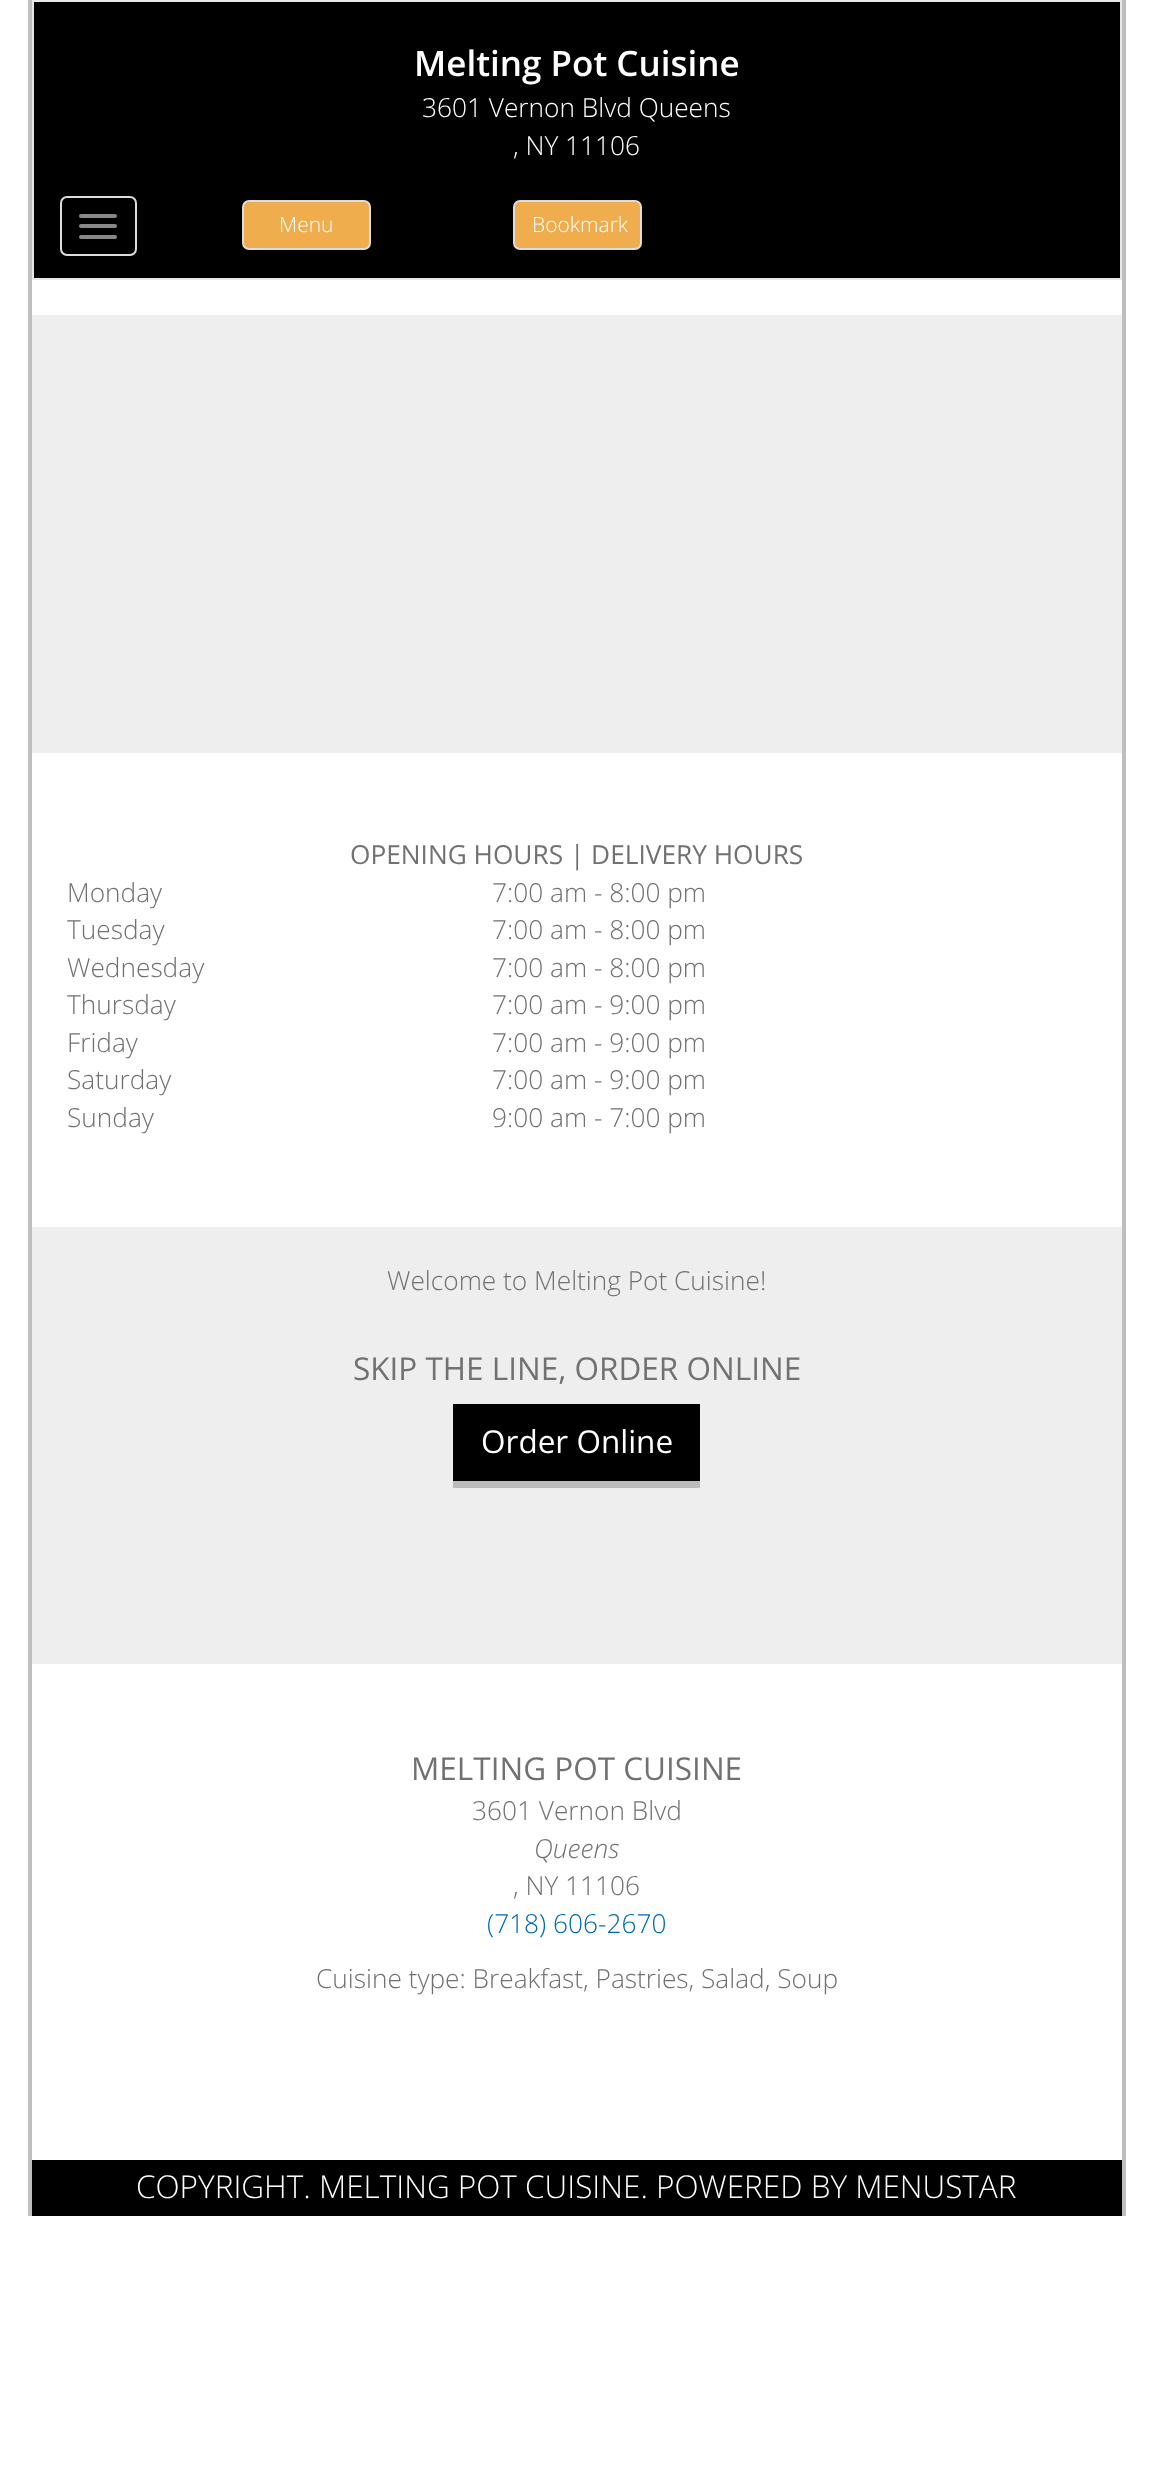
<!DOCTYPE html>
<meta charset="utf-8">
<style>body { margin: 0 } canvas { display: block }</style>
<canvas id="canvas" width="1153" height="2469"></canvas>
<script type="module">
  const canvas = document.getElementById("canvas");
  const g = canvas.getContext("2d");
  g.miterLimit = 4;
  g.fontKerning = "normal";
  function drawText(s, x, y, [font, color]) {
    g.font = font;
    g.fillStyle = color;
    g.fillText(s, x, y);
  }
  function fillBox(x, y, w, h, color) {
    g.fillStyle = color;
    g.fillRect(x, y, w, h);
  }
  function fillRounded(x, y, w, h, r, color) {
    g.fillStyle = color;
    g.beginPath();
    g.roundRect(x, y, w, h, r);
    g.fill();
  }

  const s1 = ["600 35px Open Sans", "#FFFFFF"];
  const s2 = ["300 26.25px Open Sans", "#FFFFFF"];
  const s3 = ["300 21px Open Sans", "#FFFFFF"];
  const s4 = ["26.25px Open Sans", "#717171"];
  const s5 = ["300 26.25px Open Sans", "#717171"];
  const s6 = ["31.5px Open Sans", "#717171"];
  const s7 = ["31.5px Open Sans", "#FFFFFF"];
  const s8 = ["italic 300 26.25px Open Sans", "#717171"];
  const s9 = ["300 26.25px Open Sans", "#0069B2"];
  const s10 = ["300 31.5px Open Sans", "#FFFFFF"];

  fillBox(0, 0, 1153, 2469, "#FFFFFF");
  fillBox(1122, 0, 4, 2216, "#BEBEBE");
  fillBox(28, 0, 4, 2216, "#BEBEBE");
  g.fillStyle = "#000000";
  g.beginPath();
  g.rect(33, 1, 1088, 278);
  g.fill();
  g.strokeStyle = "#E7E7E7";
  g.lineWidth = 2;
  g.stroke();
  drawText("Melting Pot Cuisine", 414, 76, s1);
  drawText("3601 Vernon Blvd Queens", 422, 117, s2);
  drawText(", NY 11106", 513, 155, s2);
  g.beginPath();
  g.roundRect(61, 197, 75, 58, 6);
  g.strokeStyle = "#DDDDDD";
  g.stroke();
  fillRounded(79, 214, 38, 4, 2, "#888888");
  fillRounded(79, 224, 38, 4, 2, "#888888");
  fillRounded(79, 235, 38, 4, 2, "#888888");
  g.fillStyle = "#F0AD4E";
  g.beginPath();
  g.roundRect(243, 201, 127, 48, 6);
  g.fill();
  g.stroke();
  drawText("Menu", 279, 232, s3);
  g.fillStyle = "#F0AD4E";
  g.beginPath();
  g.roundRect(514, 201, 127, 48, 6);
  g.fill();
  g.stroke();
  drawText("Bookmark", 532, 232, s3);
  fillBox(32, 315, 1090, 438, "#EEEEEE");
  drawText("OPENING HOURS | DELIVERY HOURS", 350, 864, s4);
  drawText("Monday", 67, 902, s5);
  drawText("7:00 am - 8:00 pm", 492, 902, s5);
  drawText("Tuesday", 67, 939, s5);
  drawText("7:00 am - 8:00 pm", 492, 939, s5);
  drawText("Wednesday", 67, 977, s5);
  drawText("7:00 am - 8:00 pm", 492, 977, s5);
  drawText("Thursday", 67, 1014, s5);
  drawText("7:00 am - 9:00 pm", 492, 1014, s5);
  drawText("Friday", 67, 1052, s5);
  drawText("7:00 am - 9:00 pm", 492, 1052, s5);
  drawText("Saturday", 67, 1089, s5);
  drawText("7:00 am - 9:00 pm", 492, 1089, s5);
  drawText("Sunday", 67, 1127, s5);
  drawText("9:00 am - 7:00 pm", 492, 1127, s5);
  fillBox(32, 1227, 1090, 437, "#EEEEEE");
  drawText("Welcome to Melting Pot Cuisine!", 387, 1290, s5);
  drawText("SKIP THE LINE, ORDER ONLINE", 353, 1380, s6);
  fillBox(453, 1404, 247, 77, "#000000");
  fillBox(453, 1481, 247, 7, "#BBBBBB");
  drawText("Order Online", 481, 1453, s7);
  drawText("MELTING POT CUISINE", 411, 1780, s6);
  drawText("3601 Vernon Blvd", 472, 1820, s5);
  drawText("Queens", 534, 1858, s8);
  drawText(", NY 11106", 513, 1895, s5);
  drawText("(718) 606-2670", 487, 1933, s9);
  drawText("Cuisine type: Breakfast, Pastries, Salad, Soup", 316, 1988, s5);
  fillBox(32, 2160, 1090, 56, "#000000");
  drawText("COPYRIGHT. MELTING POT CUISINE. POWERED BY MENUSTAR", 136, 2198, s10);
</script>
